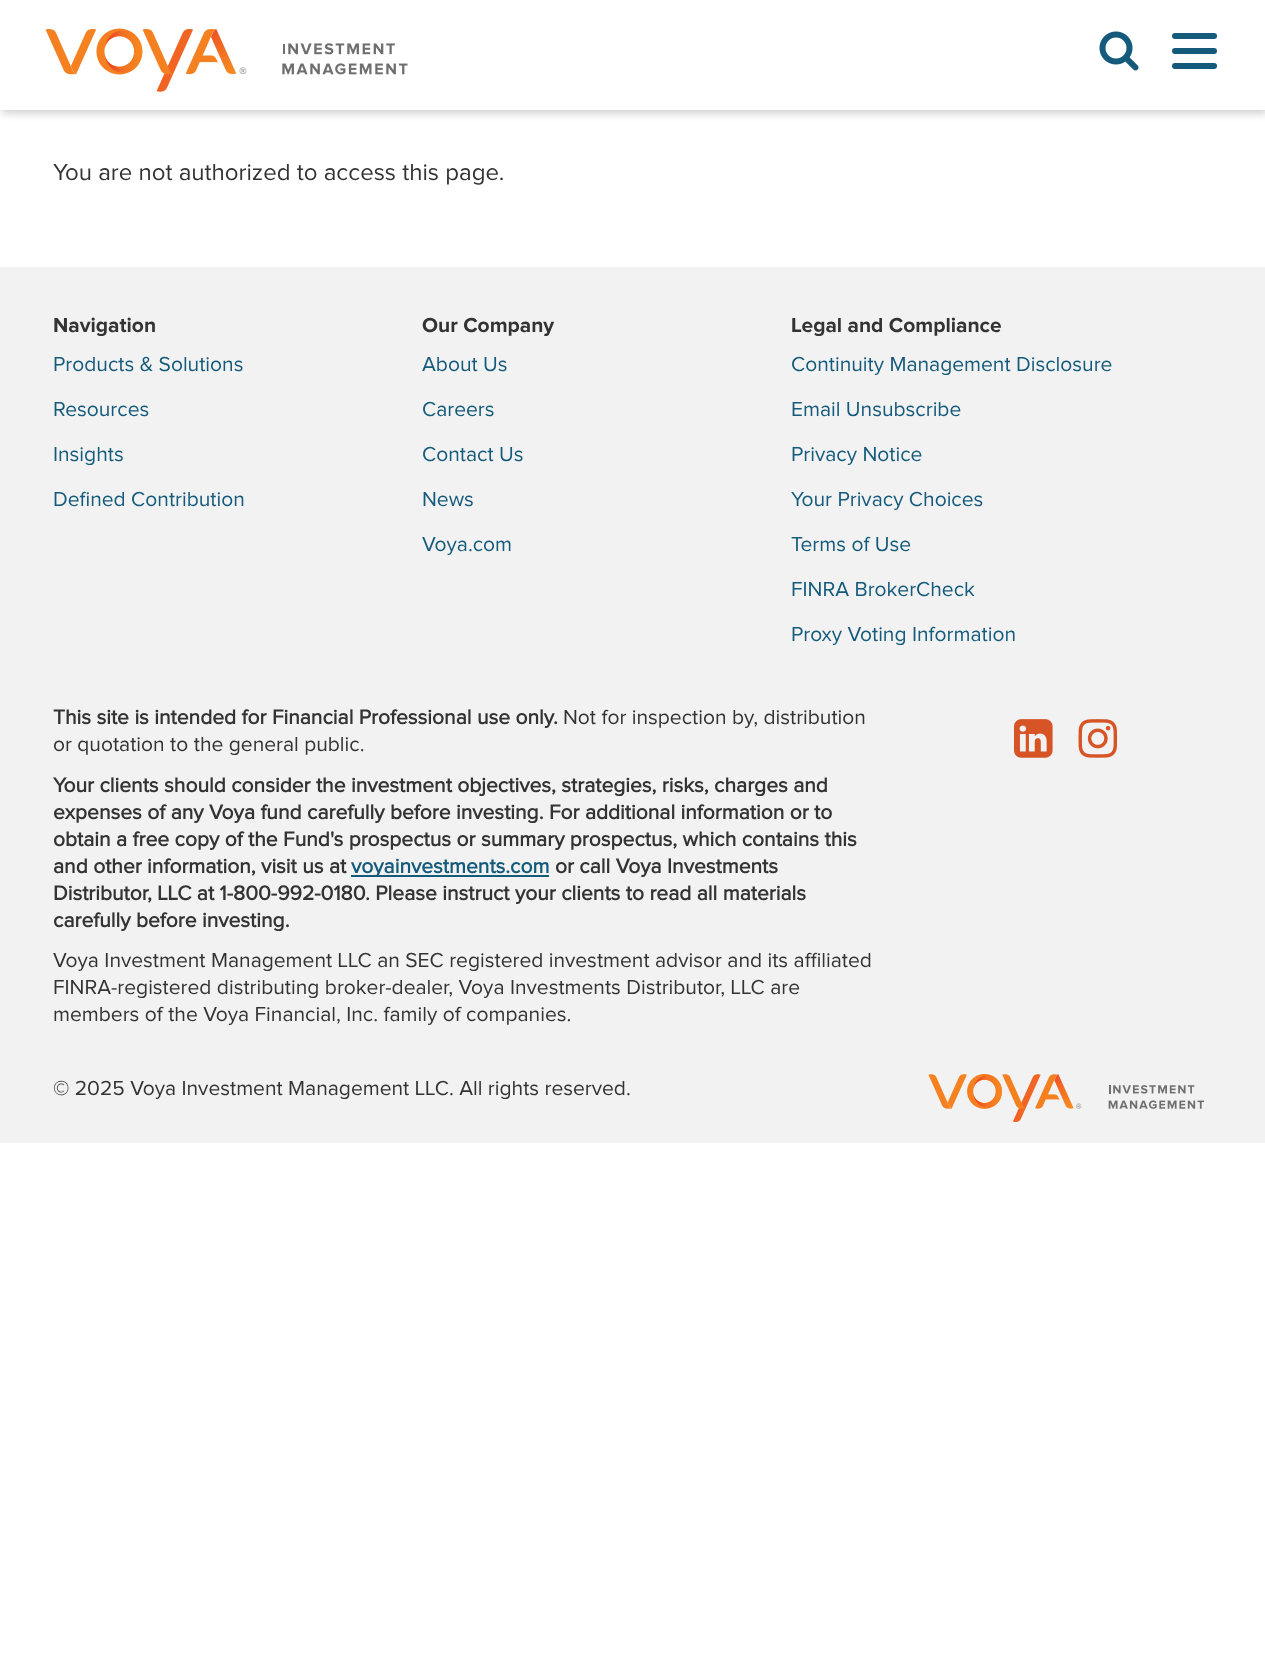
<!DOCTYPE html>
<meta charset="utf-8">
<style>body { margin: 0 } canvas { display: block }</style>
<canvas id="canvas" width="1265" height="1658"></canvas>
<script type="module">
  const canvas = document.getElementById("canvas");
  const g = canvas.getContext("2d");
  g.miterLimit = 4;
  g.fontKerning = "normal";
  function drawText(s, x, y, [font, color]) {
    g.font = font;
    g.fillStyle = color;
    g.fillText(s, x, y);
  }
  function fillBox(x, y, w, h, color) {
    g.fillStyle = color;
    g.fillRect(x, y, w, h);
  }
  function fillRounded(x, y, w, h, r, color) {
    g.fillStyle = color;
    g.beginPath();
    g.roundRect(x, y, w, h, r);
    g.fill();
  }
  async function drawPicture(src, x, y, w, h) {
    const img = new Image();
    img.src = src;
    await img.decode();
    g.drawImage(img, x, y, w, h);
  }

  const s1 = ["24px Proxima Nova", "#333333"];
  const s2 = ["bold 21px Proxima Nova", "#333333"];
  const s3 = ["21px Proxima Nova", "#145A7B"];
  const s4 = ["bold 21px 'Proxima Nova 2'", "#333333"];
  const s5 = ["21px Proxima Nova", "#333333"];
  const s6 = ["bold 21px 'Proxima Nova 2'", "#145A7B"];

  fillBox(0, 0, 1265, 1658, "#FFFFFF");
  g.fillStyle = "rgba(0, 0, 0, 0.2)";
  g.filter = "blur(4px)";
  g.beginPath();
  g.rect(2, 3, 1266, 110);
  g.fill();
  g.filter = "none";
  fillBox(0, 0, 1265, 110, "#FFFFFF");
  fillRounded(1172, 33, 45, 6, 3, "#145A7B");
  fillRounded(1172, 48, 45, 6, 3, "#145A7B");
  fillRounded(1172, 63, 45, 6, 3, "#145A7B");
  await drawPicture("pic1.png", 45, 28, 363, 64);
  await drawPicture("pic2.png", 1099, 31, 40, 40);
  drawText("You are not authorized to access this page.", 53, 180, s1);
  fillBox(0, 267, 1265, 876, "#F2F2F2");
  drawText("Navigation", 53, 332, s2);
  drawText("Products & Solutions", 53, 371, s3);
  drawText("Resources", 53, 416, s3);
  drawText("Insights", 53, 461, s3);
  drawText("Defined Contribution", 53, 506, s3);
  drawText("Our Company", 422, 332, s2);
  drawText("About Us", 422, 371, s3);
  drawText("Careers", 422, 416, s3);
  drawText("Contact Us", 422, 461, s3);
  drawText("News", 422, 506, s3);
  drawText("Voya.com", 422, 551, s3);
  drawText("Legal and Compliance", 791, 332, s2);
  drawText("Continuity Management Disclosure", 791, 371, s3);
  drawText("Email Unsubscribe", 791, 416, s3);
  drawText("Privacy Notice", 791, 461, s3);
  drawText("Your Privacy Choices", 791, 506, s3);
  drawText("Terms of Use", 791, 551, s3);
  drawText("FINRA BrokerCheck", 791, 596, s3);
  drawText("Proxy Voting Information", 791, 641, s3);
  drawText("This site is intended for Financial Professional use only.", 53, 724, s4);
  drawText("Not for inspection by, distribution", 563, 724, s5);
  drawText("or quotation to the general public.", 53, 751, s5);
  drawText("Your clients should consider the investment objectives, strategies, risks, charges and", 53, 792, s4);
  drawText("expenses of any Voya fund carefully before investing. For additional information or to", 53, 819, s4);
  drawText("obtain a free copy of the Fund's prospectus or summary prospectus, which contains this", 53, 846, s4);
  drawText("and other information, visit us at", 53, 873, s4);
  fillBox(351, 875, 198, 2, "#145A7B");
  drawText("voyainvestments.com", 351, 873, s6);
  drawText("or call Voya Investments", 555, 873, s4);
  drawText("Distributor, LLC at 1-800-992-0180. Please instruct your clients to read all materials", 53, 900, s4);
  drawText("carefully before investing.", 53, 927, s4);
  drawText("Voya Investment Management LLC an SEC registered investment advisor and its affiliated", 53, 967, s5);
  drawText("FINRA-registered distributing broker-dealer, Voya Investments Distributor, LLC are", 53, 994, s5);
  drawText("members of the Voya Financial, Inc. family of companies.", 53, 1021, s5);
  await drawPicture("pic3.png", 1014, 719, 39, 39);
  await drawPicture("pic4.png", 1078, 719, 40, 39);
  drawText("© 2025 Voya Investment Management LLC. All rights reserved.", 53, 1095, s5);
  await drawPicture("pic5.png", 928, 1073, 276, 49);
</script>
